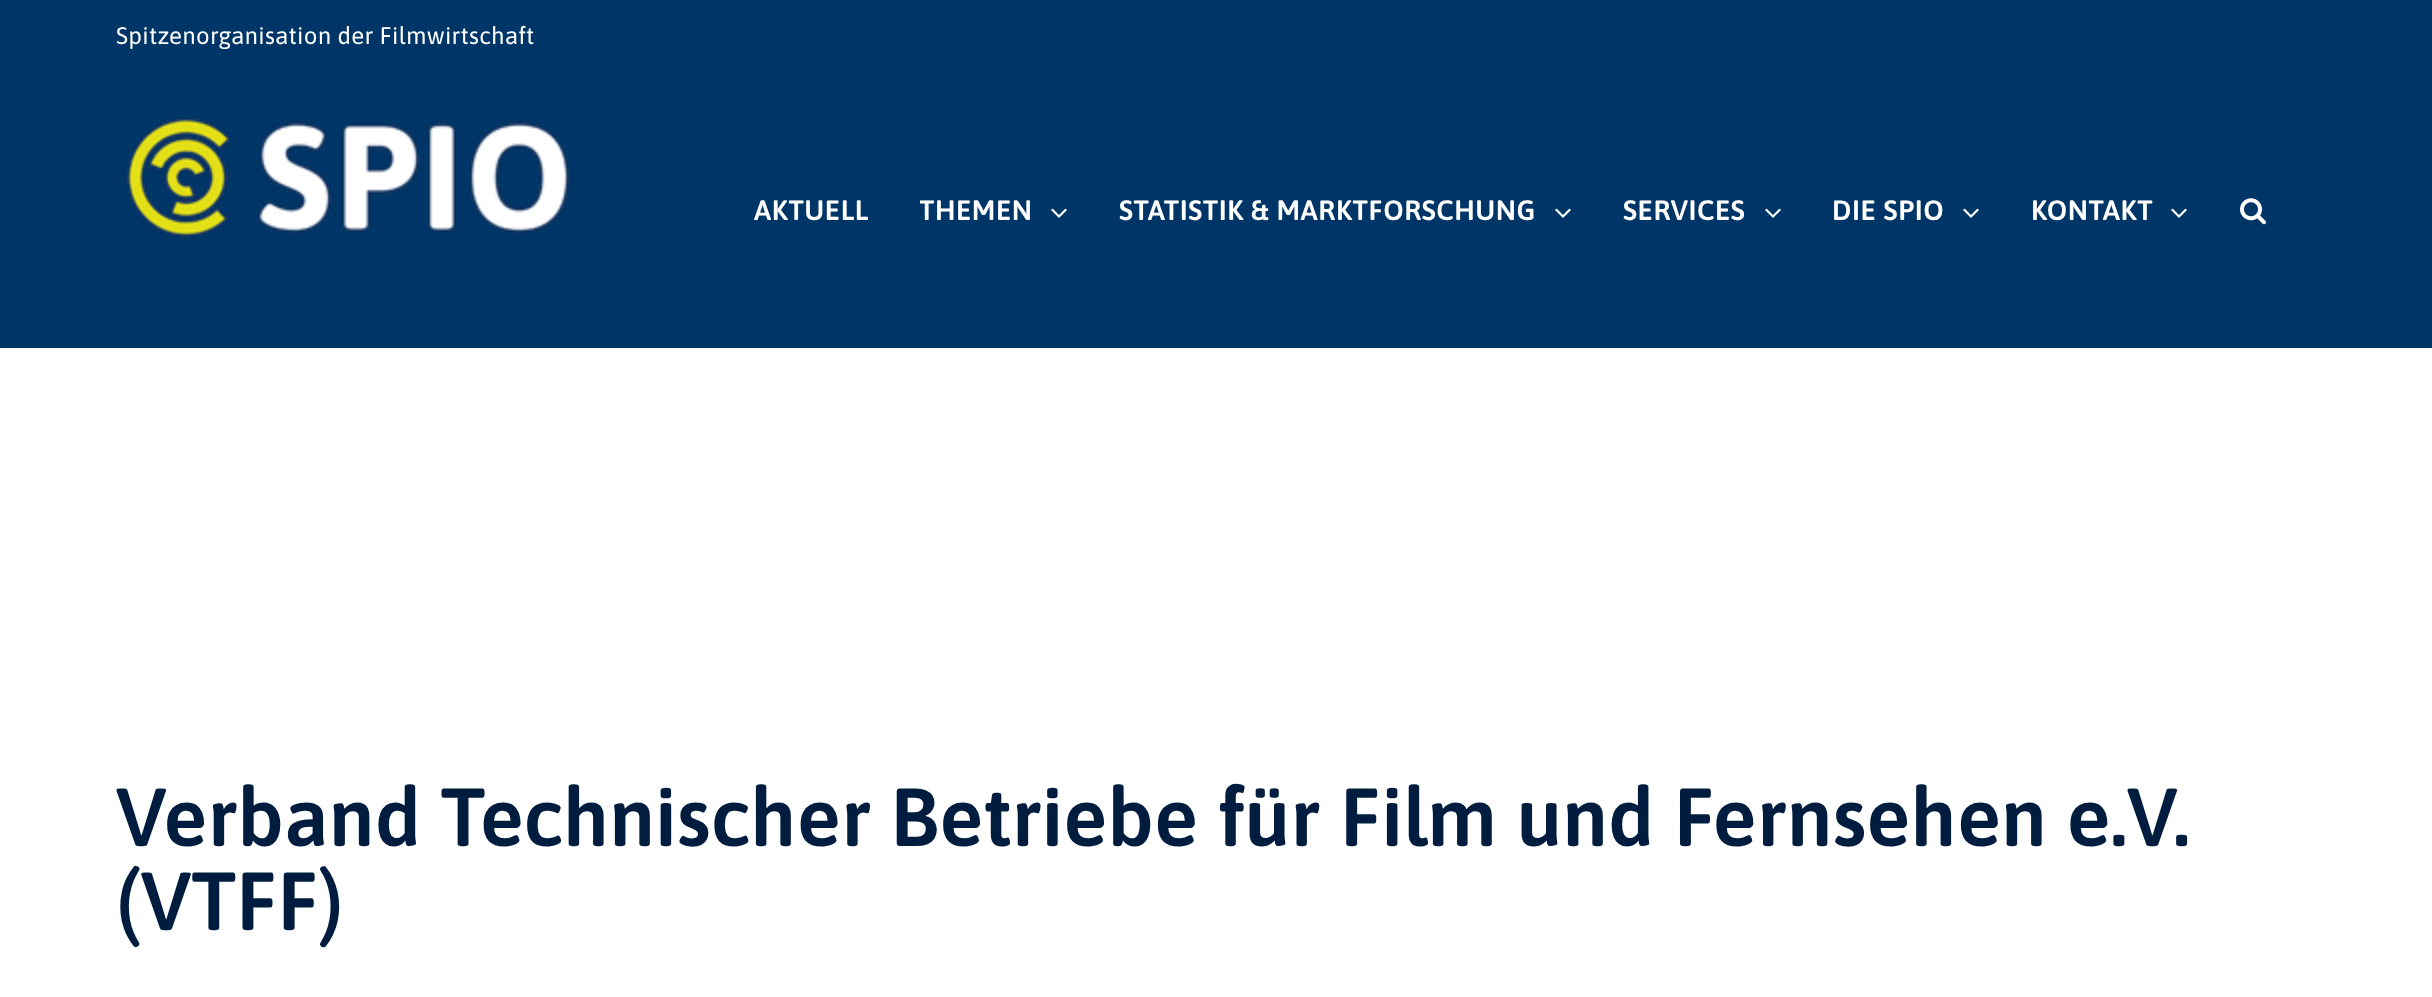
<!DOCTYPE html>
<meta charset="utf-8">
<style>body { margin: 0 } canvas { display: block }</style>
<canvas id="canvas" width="2432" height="997"></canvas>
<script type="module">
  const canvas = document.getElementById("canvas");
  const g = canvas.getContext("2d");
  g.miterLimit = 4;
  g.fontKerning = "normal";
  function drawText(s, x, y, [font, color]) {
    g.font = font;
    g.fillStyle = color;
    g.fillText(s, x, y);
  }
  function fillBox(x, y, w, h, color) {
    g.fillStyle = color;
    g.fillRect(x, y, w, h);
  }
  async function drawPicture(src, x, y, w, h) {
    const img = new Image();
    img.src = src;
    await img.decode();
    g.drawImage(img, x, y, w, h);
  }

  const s1 = ["24px Asap", "#FFFFFF"];
  const s2 = ["600 28px Asap", "#FFFFFF"];
  const s3 = ["600 82px Asap", "#001C3E"];

  fillBox(0, 0, 2432, 997, "#FFFFFF");
  fillBox(0, 0, 2432, 348, "#003667");
  g.letterSpacing = "0.3px";
  drawText("Spitzenorganisation der Filmwirtschaft", 116, 44, s1);
  await drawPicture("pic1.png", 126, 118, 445, 121);
  g.letterSpacing = "0.55px";
  drawText("AKTUELL", 754, 220, s2);
  g.save();
  g.beginPath();
  g.rect(920, 74, 200, 272);
  g.clip();
  drawText("THEMEN", 919, 220, s2);
  g.restore();
  await drawPicture("pic2.png", 1051, 208, 16, 10);
  drawText("STATISTIK & MARKTFORSCHUNG", 1119, 220, s2);
  await drawPicture("pic2.png", 1555, 208, 16, 10);
  drawText("SERVICES", 1623, 220, s2);
  await drawPicture("pic2.png", 1765, 208, 16, 10);
  drawText("DIE SPIO", 1832, 220, s2);
  await drawPicture("pic2.png", 1963, 208, 16, 10);
  drawText("KONTAKT", 2031, 220, s2);
  await drawPicture("pic2.png", 2171, 208, 16, 10);
  await drawPicture("pic3.png", 2240, 198, 26, 27);
  g.letterSpacing = "0px";
  drawText("Verband Technischer Betriebe für Film und Fernsehen e.V.", 116, 846, s3);
  drawText("(VTFF)", 116, 930, s3);
</script>
